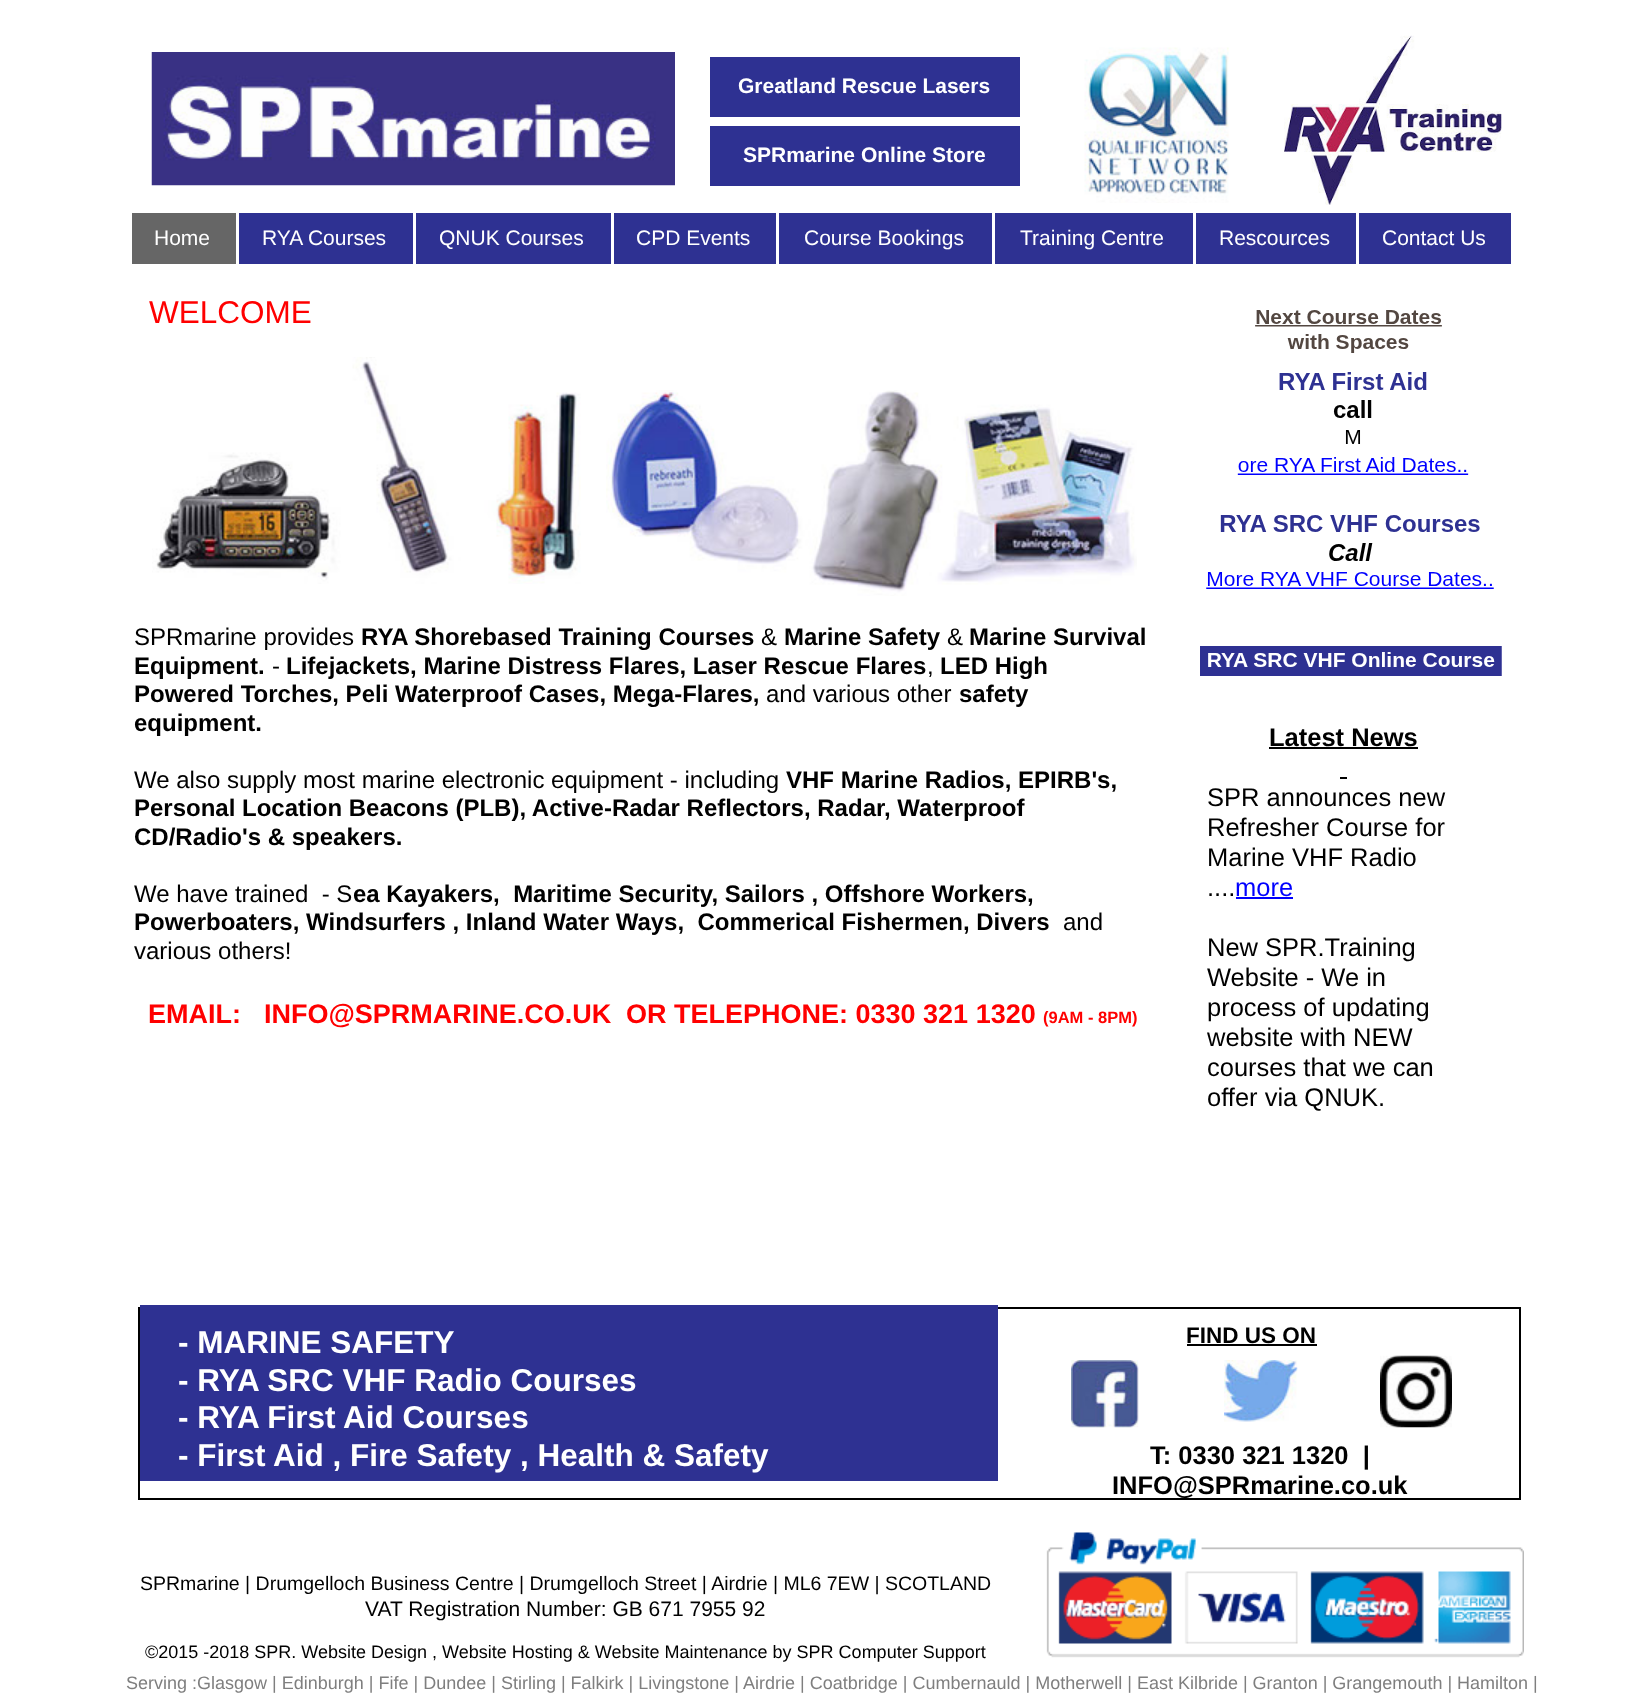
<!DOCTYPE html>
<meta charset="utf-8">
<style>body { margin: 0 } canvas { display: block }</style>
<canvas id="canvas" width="1645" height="1705"></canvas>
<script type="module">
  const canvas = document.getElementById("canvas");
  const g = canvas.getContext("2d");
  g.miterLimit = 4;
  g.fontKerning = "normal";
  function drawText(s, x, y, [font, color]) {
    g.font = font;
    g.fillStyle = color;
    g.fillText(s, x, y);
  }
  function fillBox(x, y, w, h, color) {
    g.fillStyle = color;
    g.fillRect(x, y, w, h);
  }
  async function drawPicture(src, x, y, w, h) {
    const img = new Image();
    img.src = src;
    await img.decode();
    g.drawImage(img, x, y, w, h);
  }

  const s1 = ["bold 21px Liberation Sans", "#FFFFFF"];
  const s2 = ["21px Liberation Sans", "#FFFFFF"];
  const s3 = ["31.5px Liberation Sans", "#FF0000"];
  const s4 = ["24px Liberation Sans", "#000000"];
  const s5 = ["bold 24px Liberation Sans", "#000000"];
  const s6 = ["bold 27px Liberation Sans", "#FF0000"];
  const s7 = ["bold 16.5px Liberation Sans", "#FF0000"];
  const s8 = ["bold 25.5px Liberation Sans", "#000000"];
  const s9 = ["25.5px Liberation Sans", "#000000"];
  const s10 = ["25.5px Liberation Sans", "#0000FF"];
  const s11 = ["bold 31.5px Liberation Sans", "#FFFFFF"];
  const s12 = ["bold 22.5px Liberation Sans", "#000000"];
  const s13 = ["19.5px Liberation Sans", "#000000"];
  const s14 = ["21px Liberation Sans", "#000000"];
  const s15 = ["18px Liberation Sans", "#000000"];
  const s16 = ["18px Liberation Sans", "#7F7F7F"];

  fillBox(0, 0, 1645, 1705, "#FFFFFF");
  await drawPicture("pic1.png", 151, 52, 524, 134);
  fillBox(710, 57, 310, 60, "#2E3192");
  drawText("Greatland Rescue Lasers", 738, 93, s1);
  fillBox(710, 126, 310, 60, "#2E3192");
  drawText("SPRmarine Online Store", 743, 162, s1);
  await drawPicture("pic2.png", 1084, 47, 145, 156);
  await drawPicture("pic3.png", 1284, 35, 218, 170);
  fillBox(132, 213, 104, 51, "#666666");
  drawText("Home", 154, 245, s2);
  fillBox(239, 213, 174, 51, "#2E3192");
  drawText("RYA Courses", 262, 245, s2);
  fillBox(416, 213, 195, 51, "#2E3192");
  drawText("QNUK Courses", 439, 245, s2);
  fillBox(614, 213, 162, 51, "#2E3192");
  drawText("CPD Events", 636, 245, s2);
  fillBox(779, 213, 213, 51, "#2E3192");
  drawText("Course Bookings", 804, 245, s2);
  fillBox(995, 213, 198, 51, "#2E3192");
  drawText("Training Centre", 1020, 245, s2);
  fillBox(1196, 213, 160, 51, "#2E3192");
  drawText("Rescources", 1219, 245, s2);
  fillBox(1359, 213, 152, 51, "#2E3192");
  drawText("Contact Us", 1382, 245, s2);
  drawText("WELCOME", 149, 323, s3);
  await drawPicture("pic4.png", 152, 357, 429, 227);
  await drawPicture("pic5.png", 606, 390, 531, 206);
  drawText("SPRmarine provides", 134, 645, s4);
  drawText("RYA Shorebased Training Courses", 361, 645, s5);
  drawText("&", 761, 645, s4);
  drawText("Marine Safety", 784, 645, s5);
  drawText("&", 947, 645, s4);
  drawText("Marine Survival", 969, 645, s5);
  drawText("Equipment.", 134, 674, s5);
  drawText("-", 272, 674, s4);
  drawText("Lifejackets, Marine Distress Flares, Laser Rescue Flares", 286, 674, s5);
  drawText("LED High", 940, 674, s5);
  drawText(",", 927, 674, s4);
  drawText("Powered Torches, Peli Waterproof Cases, Mega-Flares,", 134, 702, s5);
  drawText("and various other", 766, 702, s4);
  drawText("safety", 959, 702, s5);
  drawText("equipment.", 134, 731, s5);
  drawText("We also supply most marine electronic equipment - including", 134, 788, s4);
  drawText("VHF Marine Radios, EPIRB's,", 786, 788, s5);
  drawText("Personal Location Beacons (PLB), Active-Radar Reflectors, Radar, Waterproof", 134, 816, s5);
  drawText("CD/Radio's & speakers.", 134, 845, s5);
  drawText("We have trained  - S", 134, 902, s4);
  drawText("ea Kayakers,  Maritime Security, Sailors , Offshore Workers,", 353, 902, s5);
  drawText("Powerboaters, Windsurfers , Inland Water Ways,  Commerical Fishermen, Divers", 134, 930, s5);
  drawText("and", 1063, 930, s4);
  drawText("various others!", 134, 959, s4);
  drawText("EMAIL:", 148, 1023, s6);
  drawText("INFO@SPRMARINE.CO.UK", 264, 1023, s6);
  drawText("OR TELEPHONE: 0330 321 1320", 626, 1023, s6);
  drawText("(9AM - 8PM)", 1043, 1023, s7);
  await drawPicture("pic6.png", 1200, 310, 302, 366);
  drawText("Latest News", 1269, 746, s8);
  fillBox(1269, 747, 149, 2, "#000000");
  fillBox(1340, 777, 7, 2, "#000000");
  drawText("SPR announces new", 1207, 806, s9);
  drawText("Refresher Course for", 1207, 836, s9);
  drawText("Marine VHF Radio", 1207, 866, s9);
  drawText("....", 1207, 896, s9);
  drawText("more", 1235, 896, s10);
  fillBox(1236, 897, 57, 2, "#0000FF");
  drawText("New SPR.Training", 1207, 956, s9);
  drawText("Website - We in", 1207, 986, s9);
  drawText("process of updating", 1207, 1016, s9);
  drawText("website with NEW", 1207, 1046, s9);
  drawText("courses that we can", 1207, 1076, s9);
  drawText("offer via QNUK.", 1207, 1106, s9);
  g.strokeStyle = "#000000";
  g.lineWidth = 2;
  g.strokeRect(139, 1308, 1381, 191);
  fillBox(140, 1305, 858, 176, "#2E3192");
  drawText("- MARINE SAFETY", 178, 1353, s11);
  drawText("- RYA SRC VHF Radio Courses", 178, 1391, s11);
  drawText("- RYA First Aid Courses", 178, 1428, s11);
  drawText("- First Aid , Fire Safety , Health & Safety", 178, 1466, s11);
  drawText("FIND US ON", 1186, 1343, s12);
  fillBox(1187, 1344, 130, 2, "#000000");
  await drawPicture("pic7.png", 1071, 1360, 68, 68);
  await drawPicture("pic8.png", 1224, 1360, 74, 62);
  await drawPicture("pic9.png", 1380, 1355, 72, 73);
  drawText("T: 0330 321 1320  |", 1150, 1464, s8);
  drawText("INFO@SPRmarine.co.uk", 1112, 1494, s8);
  drawText("SPRmarine | Drumgelloch Business Centre | Drumgelloch Street | Airdrie | ML6 7EW | SCOTLAND", 140, 1590, s13);
  drawText("VAT Registration Number: GB 671 7955 92", 365, 1616, s14);
  drawText("©2015 -2018 SPR. Website Design , Website Hosting & Website Maintenance by SPR Computer Support", 145, 1658, s15);
  await drawPicture("pic10.png", 1046, 1532, 478, 126);
  drawText("Serving :Glasgow | Edinburgh | Fife | Dundee | Stirling | Falkirk | Livingstone | Airdrie | Coatbridge | Cumbernauld | Motherwell | East Kilbride | Granton | Grangemouth | Hamilton |", 126, 1689, s16);
</script>
